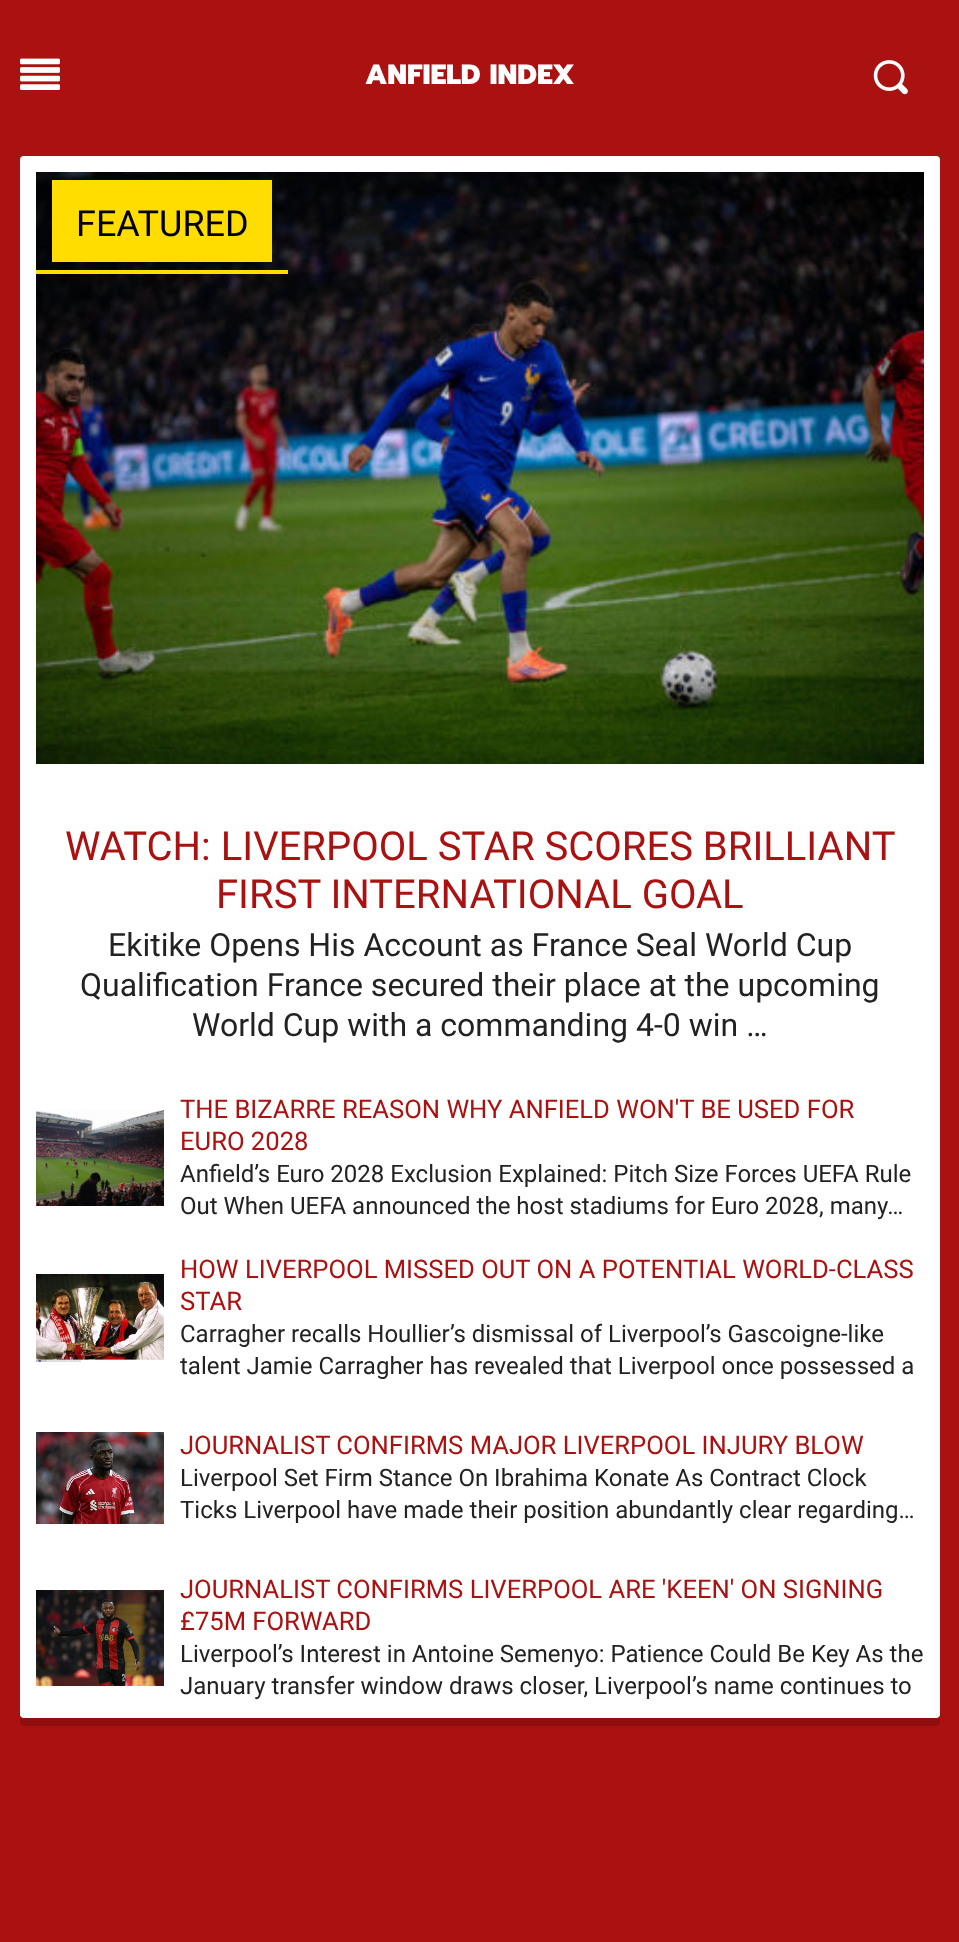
<!DOCTYPE html>
<meta charset="utf-8">
<style>body { margin: 0 } canvas { display: block }</style>
<canvas id="canvas" width="959" height="1942"></canvas>
<script type="module">
  const canvas = document.getElementById("canvas");
  const g = canvas.getContext("2d");
  g.miterLimit = 4;
  g.fontKerning = "normal";
  function drawText(s, x, y, [font, color]) {
    g.font = font;
    g.fillStyle = color;
    g.fillText(s, x, y);
  }
  function fillBox(x, y, w, h, color) {
    g.fillStyle = color;
    g.fillRect(x, y, w, h);
  }
  function fillRounded(x, y, w, h, r, color) {
    g.fillStyle = color;
    g.beginPath();
    g.roundRect(x, y, w, h, r);
    g.fill();
  }
  async function drawPicture(src, x, y, w, h) {
    const img = new Image();
    img.src = src;
    await img.decode();
    g.drawImage(img, x, y, w, h);
  }

  const s1 = ["800 28px Prompt", "#FFFFFF"];
  const s2 = ["36px Roboto", "#000000"];
  const s3 = ["40px Roboto", "#AA1111"];
  const s4 = ["32px Roboto", "#222222"];
  const s5 = ["25.6px Roboto", "#AA1111"];
  const s6 = ["24px Roboto", "#222222"];

  fillBox(0, 0, 959, 1942, "#AA1111");
  await drawPicture("pic1.png", 20, 58, 40, 32);
  drawText("ANFIELD INDEX", 365, 84, s1);
  await drawPicture("pic2.png", 873, 60, 35, 35);
  g.fillStyle = "#8F0E0E";
  g.beginPath();
  g.moveTo(20, 1714);
  g.lineTo(20, 1722);
  g.bezierCurveTo(20, 1724, 22, 1726, 24, 1726);
  g.lineTo(936, 1726);
  g.bezierCurveTo(938, 1726, 940, 1724, 940, 1722);
  g.lineTo(940, 1714);
  g.bezierCurveTo(940, 1716, 938, 1718, 936, 1718);
  g.lineTo(24, 1718);
  g.bezierCurveTo(22, 1718, 20, 1716, 20, 1714);
  g.closePath();
  g.fill();
  fillRounded(20, 156, 920, 1562, 4, "#FFFFFF");
  await drawPicture("pic3.png", 36, 172, 888, 592);
  fillBox(36, 270, 252, 4, "#FFDD00");
  fillBox(52, 180, 220, 82, "#FFDD00");
  drawText("FEATURED", 76, 236, s2);
  drawText("WATCH: LIVERPOOL STAR SCORES BRILLIANT", 65, 860, s3);
  drawText("FIRST INTERNATIONAL GOAL", 216, 908, s3);
  drawText("Ekitike Opens His Account as France Seal World Cup", 108, 956, s4);
  drawText("Qualification France secured their place at the upcoming", 80, 996, s4);
  drawText("World Cup with a commanding 4-0 win …", 192, 1036, s4);
  await drawPicture("pic4.png", 36, 1110, 128, 96);
  drawText("THE BIZARRE REASON WHY ANFIELD WON'T BE USED FOR", 180, 1118, s5);
  drawText("EURO 2028", 180, 1150, s5);
  drawText("Anfield’s Euro 2028 Exclusion Explained: Pitch Size Forces UEFA Rule", 180, 1182, s6);
  drawText("Out When UEFA announced the host stadiums for Euro 2028, many…", 180, 1214, s6);
  await drawPicture("pic5.png", 36, 1274, 128, 88);
  drawText("HOW LIVERPOOL MISSED OUT ON A POTENTIAL WORLD-CLASS", 180, 1278, s5);
  drawText("STAR", 180, 1310, s5);
  drawText("Carragher recalls Houllier’s dismissal of Liverpool’s Gascoigne-like", 180, 1342, s6);
  drawText("talent Jamie Carragher has revealed that Liverpool once possessed a", 180, 1374, s6);
  await drawPicture("pic6.png", 36, 1432, 128, 92);
  drawText("JOURNALIST CONFIRMS MAJOR LIVERPOOL INJURY BLOW", 180, 1454, s5);
  drawText("Liverpool Set Firm Stance On Ibrahima Konate As Contract Clock", 180, 1486, s6);
  drawText("Ticks Liverpool have made their position abundantly clear regarding…", 180, 1518, s6);
  await drawPicture("pic7.png", 36, 1590, 128, 96);
  drawText("JOURNALIST CONFIRMS LIVERPOOL ARE 'KEEN' ON SIGNING", 180, 1598, s5);
  drawText("£75M FORWARD", 180, 1630, s5);
  drawText("Liverpool’s Interest in Antoine Semenyo: Patience Could Be Key As the", 180, 1662, s6);
  drawText("January transfer window draws closer, Liverpool’s name continues to", 180, 1694, s6);
</script>
